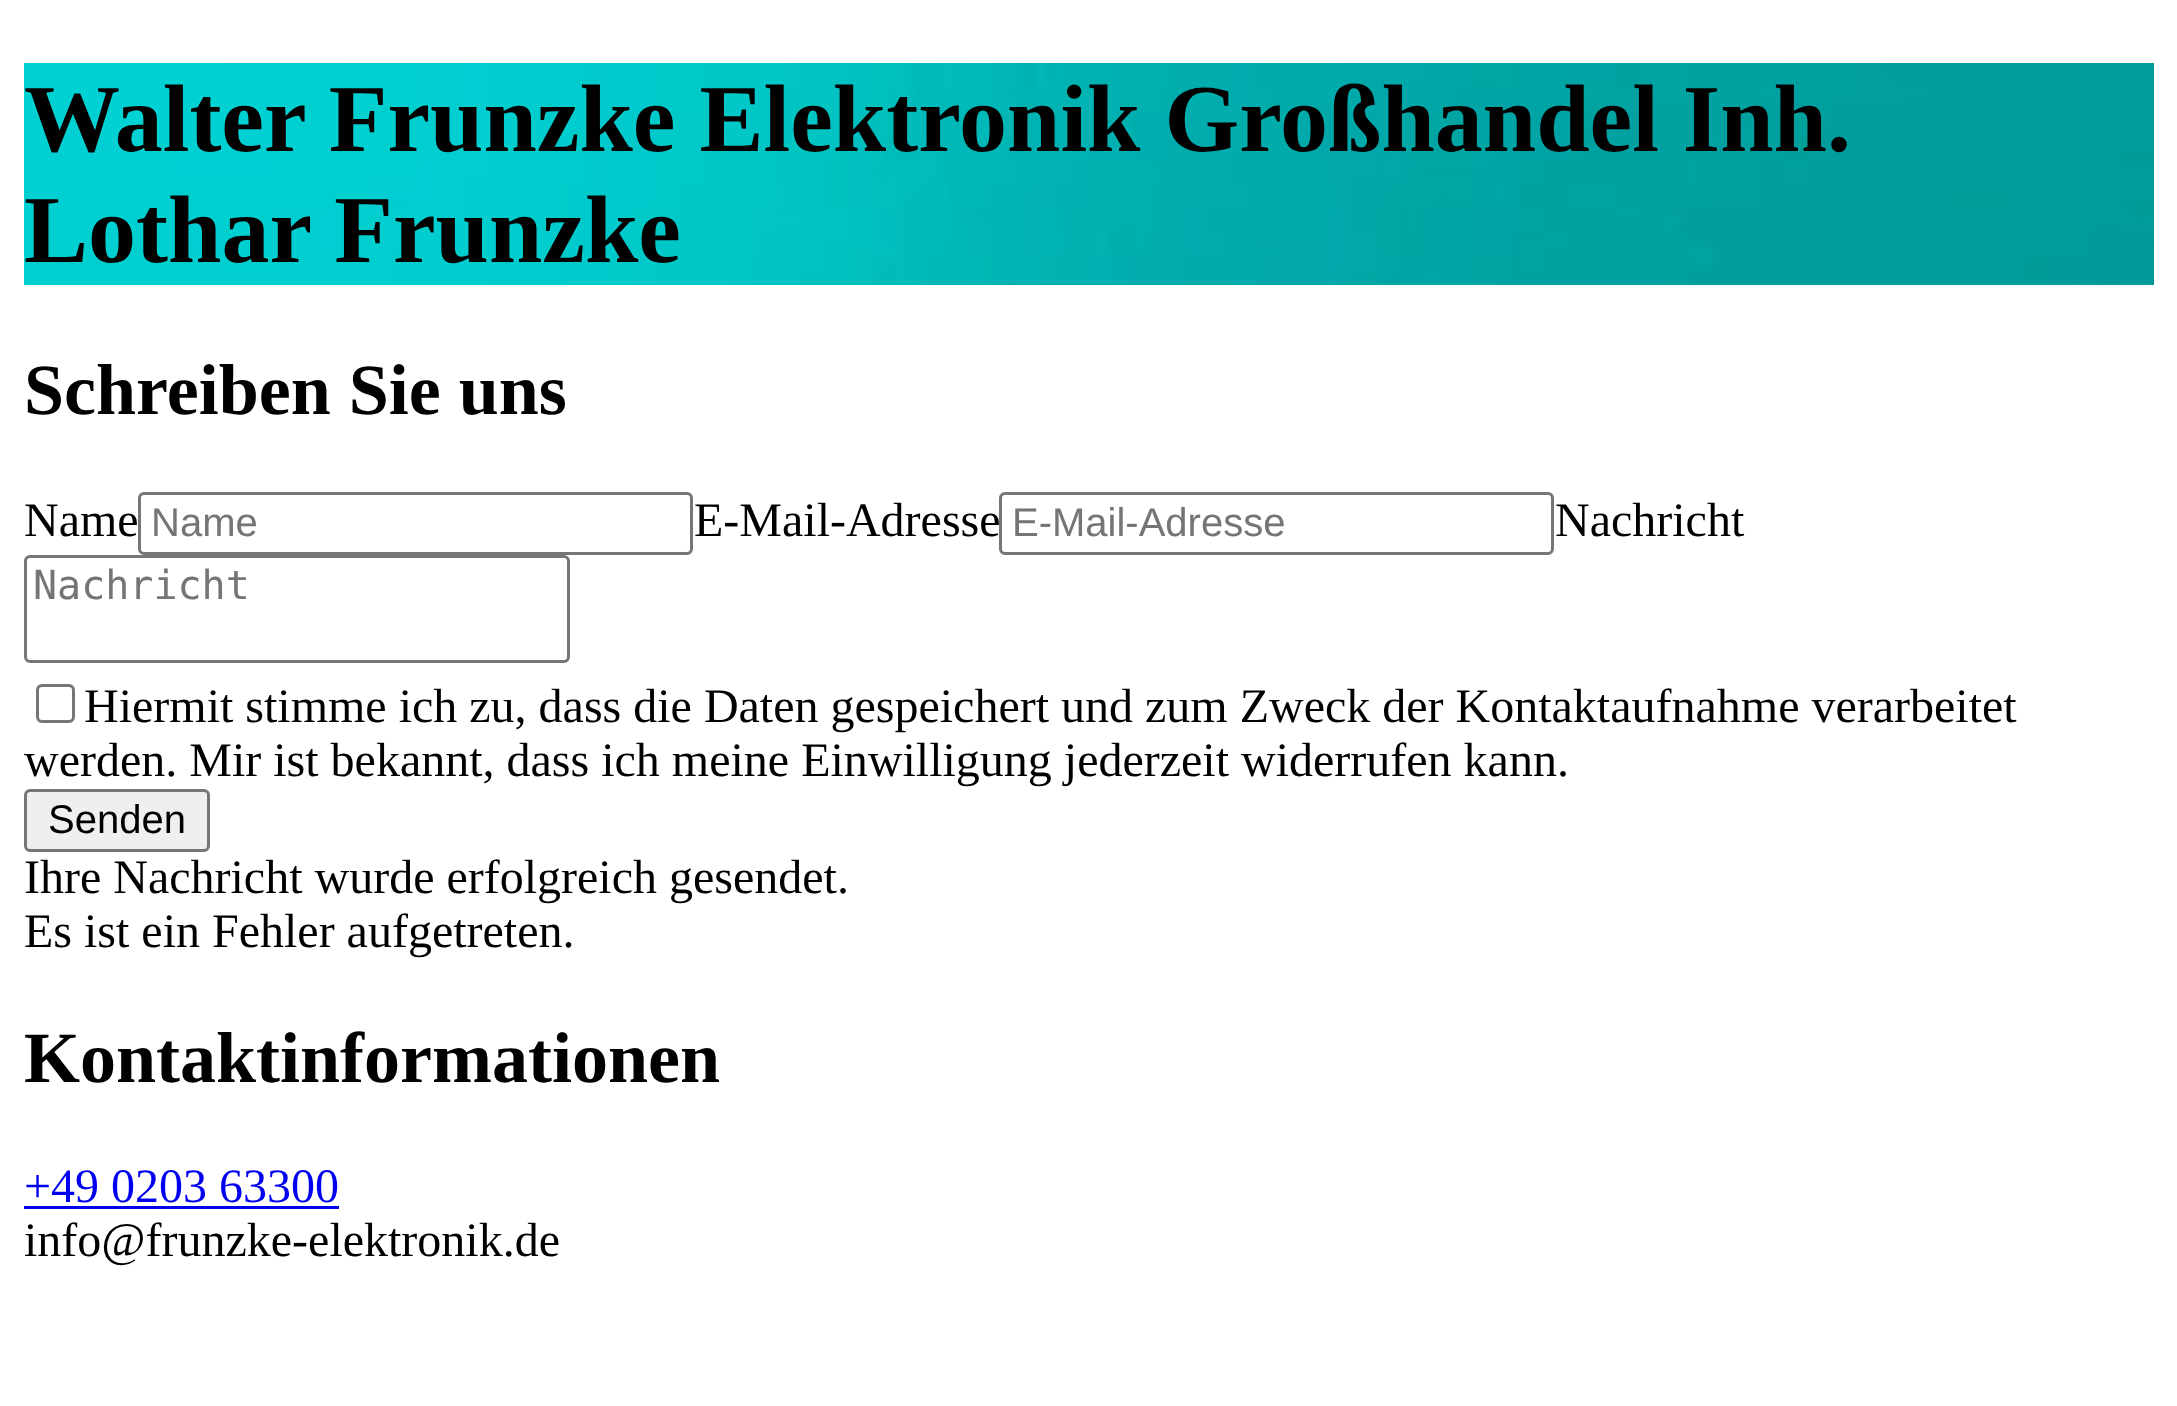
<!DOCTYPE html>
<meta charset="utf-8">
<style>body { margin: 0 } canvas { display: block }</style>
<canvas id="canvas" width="2177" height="1406"></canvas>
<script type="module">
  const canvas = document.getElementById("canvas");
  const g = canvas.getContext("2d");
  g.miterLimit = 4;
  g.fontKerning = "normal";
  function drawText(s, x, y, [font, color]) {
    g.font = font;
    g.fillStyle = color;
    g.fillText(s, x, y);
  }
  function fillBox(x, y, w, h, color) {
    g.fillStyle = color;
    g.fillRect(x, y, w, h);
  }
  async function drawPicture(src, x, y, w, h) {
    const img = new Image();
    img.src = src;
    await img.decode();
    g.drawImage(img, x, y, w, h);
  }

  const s1 = ["bold 96px Liberation Serif", "#000000"];
  const s2 = ["bold 72px Liberation Serif", "#000000"];
  const s3 = ["48px Liberation Serif", "#000000"];
  const s4 = ["40px Liberation Sans", "#757575"];
  const s5 = ["40px DejaVu Sans Mono", "#757575"];
  const s6 = ["40px Liberation Sans", "#000000"];
  const s7 = ["48px Liberation Serif", "#0000EE"];

  fillBox(0, 0, 2177, 1406, "#FFFFFF");
  await drawPicture("pic1.png", 24, 63, 2130, 222);
  drawText("Walter Frunzke Elektronik Großhandel Inh.", 24, 151, s1);
  drawText("Lothar Frunzke", 24, 262, s1);
  drawText("Schreiben Sie uns", 24, 414, s2);
  drawText("Name", 24, 536, s3);
  g.beginPath();
  g.roundRect(139.5, 493.5, 552, 60, 4.5);
  g.strokeStyle = "#767676";
  g.lineWidth = 3;
  g.stroke();
  drawText("Name", 151, 536, s4);
  drawText("E-Mail-Adresse", 694, 536, s3);
  g.beginPath();
  g.roundRect(1000.5, 493.5, 552, 60, 4.5);
  g.stroke();
  drawText("E-Mail-Adresse", 1012, 536, s4);
  drawText("Nachricht", 1555, 536, s3);
  g.beginPath();
  g.roundRect(25.5, 556.5, 543, 105, 4.5);
  g.stroke();
  drawText("Nachricht", 33, 599, s5);
  g.beginPath();
  g.roundRect(37.5, 685.5, 36, 36, 4.5);
  g.stroke();
  drawText("Hiermit stimme ich zu, dass die Daten gespeichert und zum Zweck der Kontaktaufnahme verarbeitet", 84, 722, s3);
  drawText("werden. Mir ist bekannt, dass ich meine Einwilligung jederzeit widerrufen kann.", 24, 776, s3);
  g.fillStyle = "#EFEFEF";
  g.beginPath();
  g.roundRect(25.5, 790.5, 183, 60, 4.5);
  g.fill();
  g.stroke();
  drawText("Senden", 48, 833, s6);
  drawText("Ihre Nachricht wurde erfolgreich gesendet.", 24, 893, s3);
  drawText("Es ist ein Fehler aufgetreten.", 24, 947, s3);
  drawText("Kontaktinformationen", 24, 1082, s2);
  drawText("+49 0203 63300", 24, 1202, s7);
  fillBox(24, 1206, 315, 3, "#0000EE");
  drawText("info@frunzke-elektronik.de", 24, 1256, s3);
</script>
